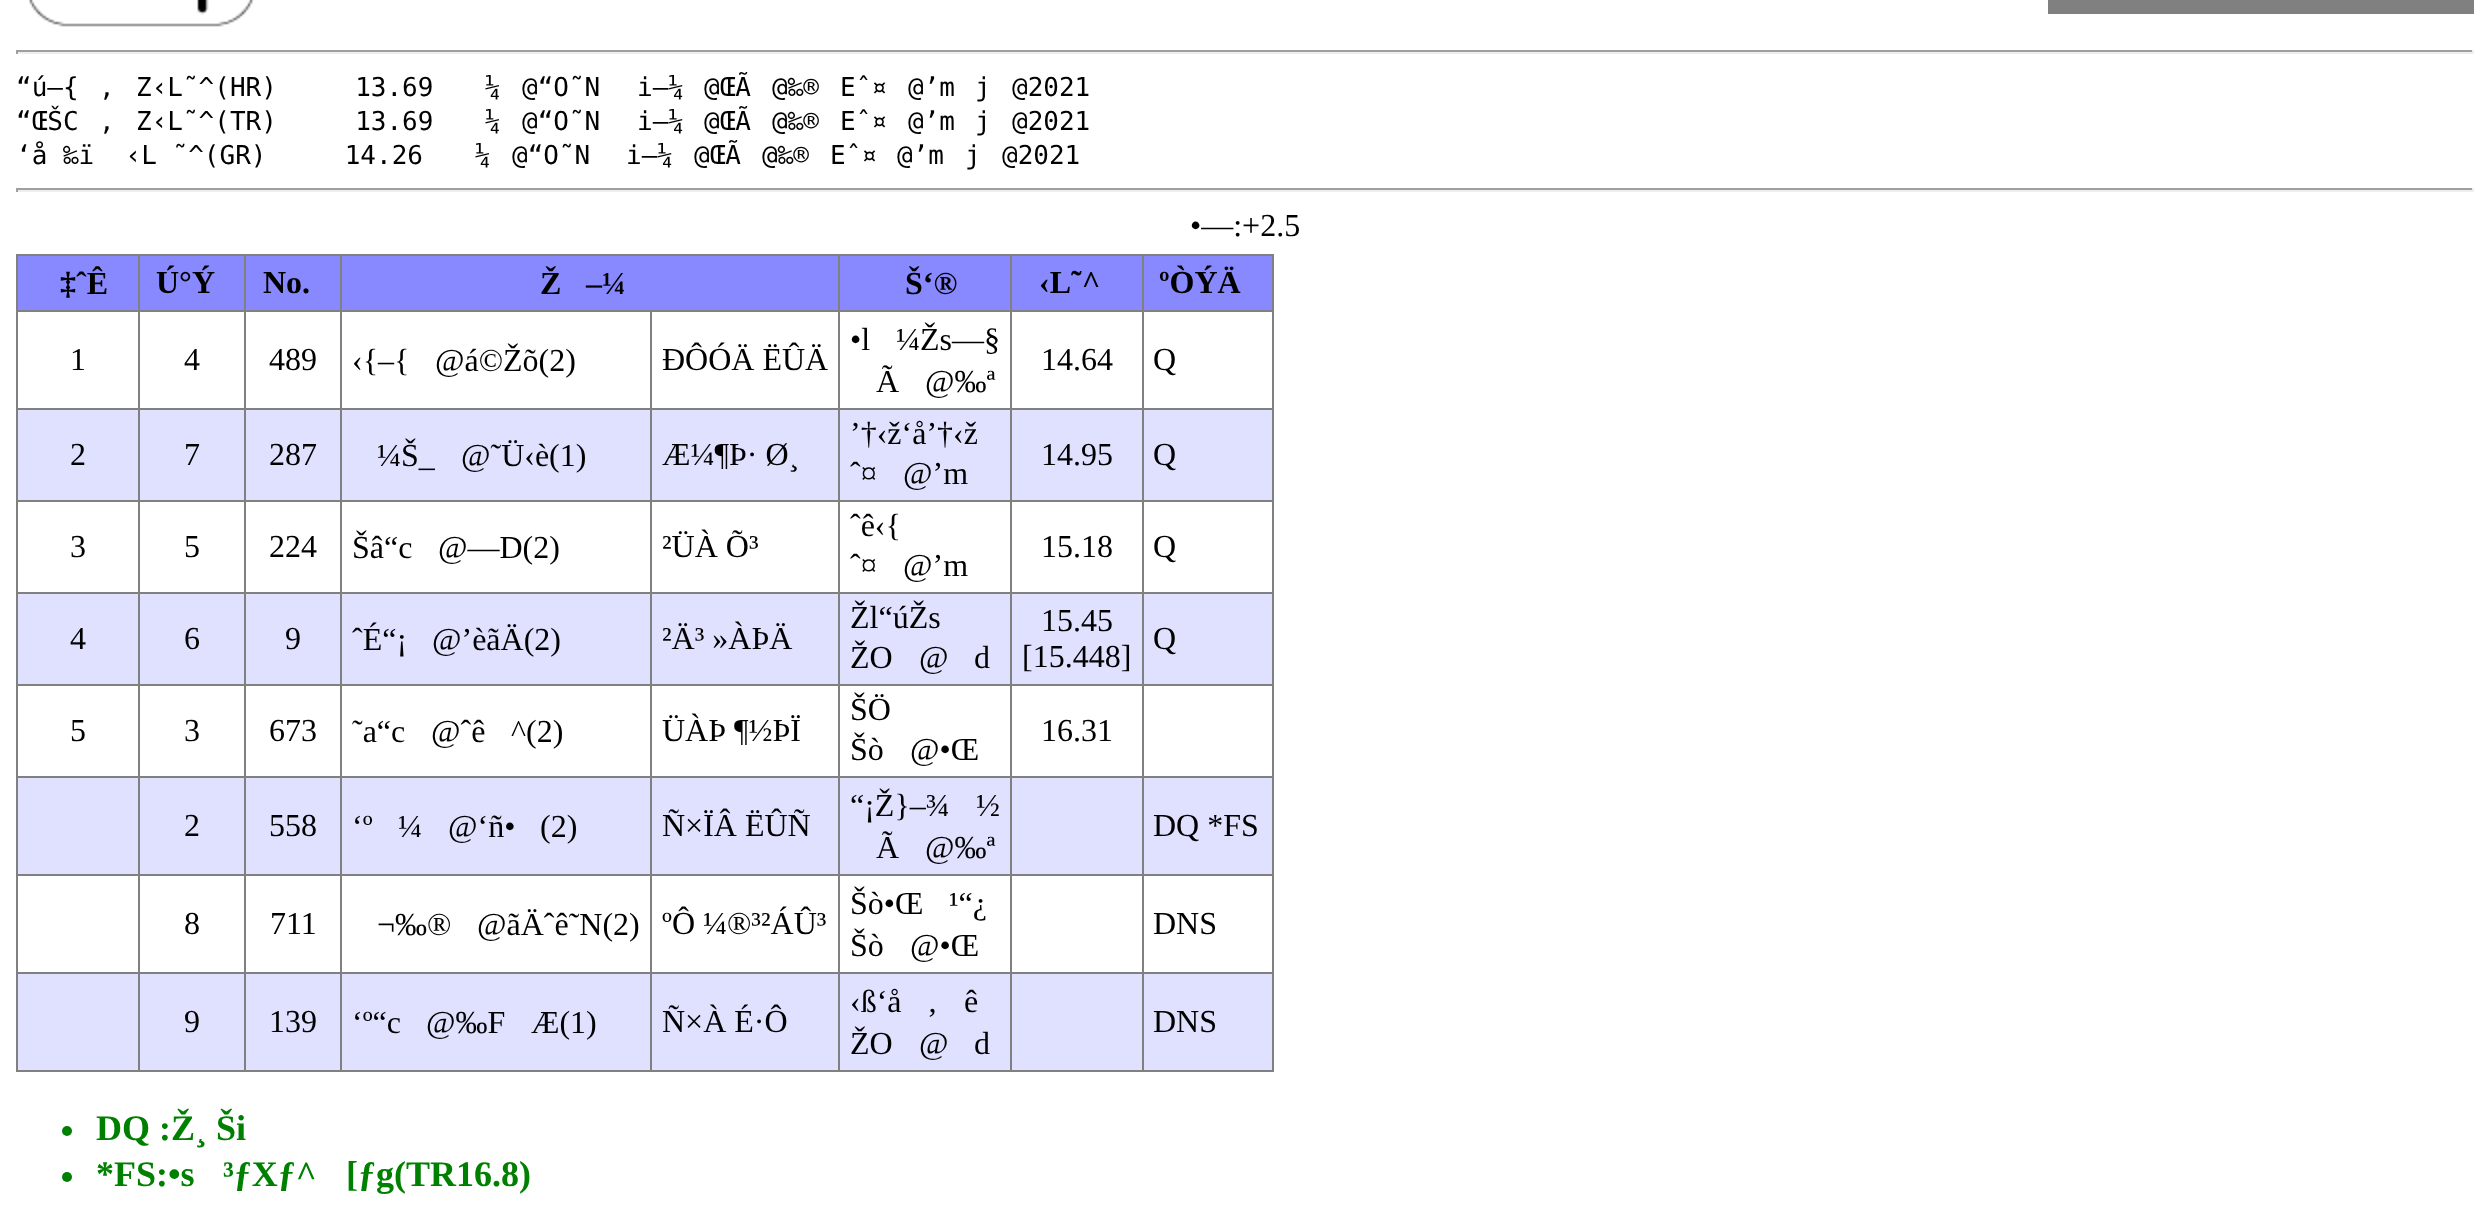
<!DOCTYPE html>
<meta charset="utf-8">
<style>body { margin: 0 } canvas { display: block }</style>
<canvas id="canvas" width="2490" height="1205"></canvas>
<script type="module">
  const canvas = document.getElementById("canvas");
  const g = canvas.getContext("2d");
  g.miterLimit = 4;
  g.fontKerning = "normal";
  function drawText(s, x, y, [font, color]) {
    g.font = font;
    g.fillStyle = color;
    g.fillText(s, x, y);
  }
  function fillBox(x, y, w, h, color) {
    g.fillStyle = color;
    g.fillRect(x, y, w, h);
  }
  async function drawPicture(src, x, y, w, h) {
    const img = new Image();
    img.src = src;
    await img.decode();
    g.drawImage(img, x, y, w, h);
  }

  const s1 = ["26px DejaVu Sans Mono", "#000000"];
  const s2 = ["32px Liberation Serif", "#000000"];
  const s3 = ["bold 32px Liberation Serif", "#000000"];
  const s4 = ["bold 36px Liberation Serif", "#008000"];

  fillBox(0, 0, 2490, 1205, "#FFFFFF");
  await drawPicture("pic1.png", 28, 0, 226, 27);
  fillBox(2048, 0, 426, 14, "#808080");
  fillBox(16, 50, 2458, 2, "#9F9F9F");
  fillBox(2472, 50, 2, 4, "#EEEEEE");
  fillBox(16, 52, 2458, 2, "#EEEEEE");
  fillBox(16, 50, 2, 4, "#9F9F9F");
  drawText("“ú–{", 16, 96, s1);
  drawText("‚", 99, 96, s1);
  drawText("Z‹L˜^(HR)     13.69", 136, 96, s1);
  drawText("¼", 485, 96, s1);
  drawText("@“O˜N", 522, 96, s1);
  drawText("i–¼", 637, 96, s1);
  drawText("@ŒÃ", 704, 96, s1);
  drawText("@‰®", 772, 96, s1);
  drawText("Eˆ¤", 840, 96, s1);
  drawText("@’m", 908, 96, s1);
  drawText("j", 975, 96, s1);
  drawText("@2021", 1012, 96, s1);
  drawText("“ŒŠC", 16, 130, s1);
  drawText("‚", 99, 130, s1);
  drawText("Z‹L˜^(TR)     13.69", 136, 130, s1);
  drawText("¼", 485, 130, s1);
  drawText("@“O˜N", 522, 130, s1);
  drawText("i–¼", 637, 130, s1);
  drawText("@ŒÃ", 704, 130, s1);
  drawText("@‰®", 772, 130, s1);
  drawText("Eˆ¤", 840, 130, s1);
  drawText("@’m", 908, 130, s1);
  drawText("j", 975, 130, s1);
  drawText("@2021", 1012, 130, s1);
  drawText("‘å ‰ï  ‹L ˜^(GR)     14.26", 16, 164, s1);
  drawText("¼", 475, 164, s1);
  drawText("@“O˜N", 512, 164, s1);
  drawText("i–¼", 626, 164, s1);
  drawText("@ŒÃ", 694, 164, s1);
  drawText("@‰®", 762, 164, s1);
  drawText("Eˆ¤", 830, 164, s1);
  drawText("@’m", 897, 164, s1);
  drawText("j", 965, 164, s1);
  drawText("@2021", 1002, 164, s1);
  fillBox(16, 188, 2458, 2, "#9F9F9F");
  fillBox(2472, 188, 2, 4, "#EEEEEE");
  fillBox(16, 190, 2458, 2, "#EEEEEE");
  fillBox(16, 188, 2, 4, "#9F9F9F");
  drawText("•—:+2.5", 1190, 236, s2);
  fillBox(16, 254, 1258, 2, "#808080");
  fillBox(16, 254, 2, 818, "#808080");
  fillBox(18, 256, 120, 54, "#8888FF");
  fillBox(18, 410, 1254, 90, "#E0E0FF");
  fillBox(18, 594, 1254, 90, "#E0E0FF");
  fillBox(18, 778, 1254, 96, "#E0E0FF");
  fillBox(18, 974, 1254, 96, "#E0E0FF");
  fillBox(1272, 254, 2, 818, "#808080");
  fillBox(1142, 1070, 132, 2, "#808080");
  fillBox(1142, 972, 2, 100, "#808080");
  fillBox(1142, 972, 132, 2, "#808080");
  fillBox(1142, 874, 2, 100, "#808080");
  fillBox(1142, 874, 132, 2, "#808080");
  fillBox(1142, 776, 2, 100, "#808080");
  fillBox(1142, 776, 132, 2, "#808080");
  fillBox(1142, 684, 2, 94, "#808080");
  fillBox(1142, 684, 132, 2, "#808080");
  fillBox(1142, 592, 2, 94, "#808080");
  fillBox(1142, 592, 132, 2, "#808080");
  fillBox(1142, 500, 2, 94, "#808080");
  fillBox(1142, 500, 132, 2, "#808080");
  fillBox(1142, 408, 2, 94, "#808080");
  fillBox(1142, 408, 132, 2, "#808080");
  fillBox(1142, 310, 2, 100, "#808080");
  fillBox(1142, 310, 132, 2, "#808080");
  fillBox(1142, 254, 2, 58, "#808080");
  fillBox(1010, 1070, 134, 2, "#808080");
  fillBox(1010, 972, 2, 100, "#808080");
  fillBox(1010, 972, 134, 2, "#808080");
  fillBox(1010, 874, 2, 100, "#808080");
  fillBox(1010, 874, 134, 2, "#808080");
  fillBox(1010, 776, 2, 100, "#808080");
  fillBox(1010, 776, 134, 2, "#808080");
  fillBox(1010, 684, 2, 94, "#808080");
  fillBox(1010, 684, 134, 2, "#808080");
  fillBox(1010, 592, 2, 94, "#808080");
  fillBox(1010, 592, 134, 2, "#808080");
  fillBox(1010, 500, 2, 94, "#808080");
  fillBox(1010, 500, 134, 2, "#808080");
  fillBox(1010, 408, 2, 94, "#808080");
  fillBox(1010, 408, 134, 2, "#808080");
  fillBox(1010, 310, 2, 100, "#808080");
  fillBox(1010, 310, 134, 2, "#808080");
  fillBox(1010, 254, 2, 58, "#808080");
  fillBox(838, 1070, 174, 2, "#808080");
  fillBox(838, 972, 2, 100, "#808080");
  fillBox(838, 972, 174, 2, "#808080");
  fillBox(838, 874, 2, 100, "#808080");
  fillBox(838, 874, 174, 2, "#808080");
  fillBox(838, 776, 2, 100, "#808080");
  fillBox(838, 776, 174, 2, "#808080");
  fillBox(838, 684, 2, 94, "#808080");
  fillBox(838, 684, 174, 2, "#808080");
  fillBox(838, 592, 2, 94, "#808080");
  fillBox(838, 592, 174, 2, "#808080");
  fillBox(838, 500, 2, 94, "#808080");
  fillBox(838, 500, 174, 2, "#808080");
  fillBox(838, 408, 2, 94, "#808080");
  fillBox(838, 408, 174, 2, "#808080");
  fillBox(838, 310, 2, 100, "#808080");
  fillBox(838, 310, 174, 2, "#808080");
  fillBox(838, 254, 2, 58, "#808080");
  fillBox(650, 1070, 190, 2, "#808080");
  fillBox(650, 972, 2, 100, "#808080");
  fillBox(650, 972, 190, 2, "#808080");
  fillBox(650, 874, 2, 100, "#808080");
  fillBox(650, 874, 190, 2, "#808080");
  fillBox(650, 776, 2, 100, "#808080");
  fillBox(650, 776, 190, 2, "#808080");
  fillBox(650, 684, 2, 94, "#808080");
  fillBox(650, 684, 190, 2, "#808080");
  fillBox(650, 592, 2, 94, "#808080");
  fillBox(650, 592, 190, 2, "#808080");
  fillBox(650, 500, 2, 94, "#808080");
  fillBox(650, 500, 190, 2, "#808080");
  fillBox(650, 408, 2, 94, "#808080");
  fillBox(650, 408, 190, 2, "#808080");
  fillBox(650, 310, 2, 100, "#808080");
  fillBox(340, 1070, 312, 2, "#808080");
  fillBox(340, 972, 2, 100, "#808080");
  fillBox(340, 972, 312, 2, "#808080");
  fillBox(340, 874, 2, 100, "#808080");
  fillBox(340, 874, 312, 2, "#808080");
  fillBox(340, 776, 2, 100, "#808080");
  fillBox(340, 776, 312, 2, "#808080");
  fillBox(340, 684, 2, 94, "#808080");
  fillBox(340, 684, 312, 2, "#808080");
  fillBox(340, 592, 2, 94, "#808080");
  fillBox(340, 592, 312, 2, "#808080");
  fillBox(340, 500, 2, 94, "#808080");
  fillBox(340, 500, 312, 2, "#808080");
  fillBox(340, 408, 2, 94, "#808080");
  fillBox(340, 408, 312, 2, "#808080");
  fillBox(340, 310, 2, 100, "#808080");
  fillBox(340, 310, 500, 2, "#808080");
  fillBox(340, 254, 2, 58, "#808080");
  fillBox(244, 1070, 98, 2, "#808080");
  fillBox(244, 972, 2, 100, "#808080");
  fillBox(244, 972, 98, 2, "#808080");
  fillBox(244, 874, 2, 100, "#808080");
  fillBox(244, 874, 98, 2, "#808080");
  fillBox(244, 776, 2, 100, "#808080");
  fillBox(244, 776, 98, 2, "#808080");
  fillBox(244, 684, 2, 94, "#808080");
  fillBox(244, 684, 98, 2, "#808080");
  fillBox(244, 592, 2, 94, "#808080");
  fillBox(244, 592, 98, 2, "#808080");
  fillBox(244, 500, 2, 94, "#808080");
  fillBox(244, 500, 98, 2, "#808080");
  fillBox(244, 408, 2, 94, "#808080");
  fillBox(244, 408, 98, 2, "#808080");
  fillBox(244, 310, 2, 100, "#808080");
  fillBox(244, 310, 98, 2, "#808080");
  fillBox(244, 254, 2, 58, "#808080");
  fillBox(138, 1070, 108, 2, "#808080");
  fillBox(138, 972, 2, 100, "#808080");
  fillBox(138, 972, 108, 2, "#808080");
  fillBox(138, 874, 2, 100, "#808080");
  fillBox(138, 874, 108, 2, "#808080");
  fillBox(138, 776, 2, 100, "#808080");
  fillBox(138, 776, 108, 2, "#808080");
  fillBox(138, 684, 2, 94, "#808080");
  fillBox(138, 684, 108, 2, "#808080");
  fillBox(138, 592, 2, 94, "#808080");
  fillBox(138, 592, 108, 2, "#808080");
  fillBox(138, 500, 2, 94, "#808080");
  fillBox(138, 500, 108, 2, "#808080");
  fillBox(138, 408, 2, 94, "#808080");
  fillBox(138, 408, 108, 2, "#808080");
  fillBox(138, 310, 2, 100, "#808080");
  fillBox(138, 310, 108, 2, "#808080");
  fillBox(138, 254, 2, 58, "#808080");
  fillBox(16, 310, 124, 2, "#808080");
  drawText("‡ˆÊ", 60, 294, s3);
  fillBox(140, 256, 104, 54, "#8888FF");
  drawText("Ú°Ý", 156, 293, s3);
  fillBox(246, 256, 94, 54, "#8888FF");
  drawText("No.", 263, 293, s3);
  fillBox(342, 256, 496, 54, "#8888FF");
  drawText("Ž", 540, 294, s3);
  drawText("–¼", 586, 294, s3);
  fillBox(840, 256, 170, 54, "#8888FF");
  drawText("Š‘®", 905, 294, s3);
  fillBox(1012, 256, 130, 54, "#8888FF");
  drawText("‹L˜^", 1039, 293, s3);
  fillBox(1144, 256, 128, 54, "#8888FF");
  drawText("ºÒÝÄ", 1159, 293, s3);
  fillBox(16, 408, 124, 2, "#808080");
  drawText("1", 70, 370, s2);
  drawText("4", 184, 370, s2);
  drawText("489", 269, 370, s2);
  drawText("‹{–{", 352, 371, s2);
  drawText("@á©Žõ(2)", 435, 371, s2);
  drawText("ÐÔÓÄ ËÛÄ", 662, 370, s2);
  drawText("•l", 850, 350, s2);
  drawText("¼Žs—§", 896, 350, s2);
  drawText("Ã", 876, 392, s2);
  drawText("@‰ª", 925, 392, s2);
  drawText("14.64", 1041, 370, s2);
  drawText("Q", 1153, 370, s2);
  fillBox(16, 500, 124, 2, "#808080");
  drawText("2", 70, 465, s2);
  drawText("7", 184, 465, s2);
  drawText("287", 269, 465, s2);
  drawText("¼Š_", 377, 466, s2);
  drawText("@˜Ü‹è(1)", 461, 466, s2);
  drawText("Æ¼¶Þ· Ø¸", 662, 465, s2);
  drawText("’†‹ž‘å’†‹ž", 850, 444, s2);
  drawText("ˆ¤", 850, 484, s2);
  drawText("@’m", 903, 484, s2);
  drawText("14.95", 1041, 465, s2);
  drawText("Q", 1153, 465, s2);
  fillBox(16, 592, 124, 2, "#808080");
  drawText("3", 70, 557, s2);
  drawText("5", 184, 557, s2);
  drawText("224", 269, 557, s2);
  drawText("Šâ“c", 352, 558, s2);
  drawText("@—D(2)", 438, 558, s2);
  drawText("²ÜÀ Õ³", 662, 557, s2);
  drawText("ˆê‹{", 850, 536, s2);
  drawText("ˆ¤", 850, 576, s2);
  drawText("@’m", 903, 576, s2);
  drawText("15.18", 1041, 557, s2);
  drawText("Q", 1153, 557, s2);
  fillBox(16, 684, 124, 2, "#808080");
  drawText("4", 70, 649, s2);
  drawText("6", 184, 649, s2);
  drawText("9", 285, 649, s2);
  drawText("ˆÉ“¡", 352, 650, s2);
  drawText("@’èãÄ(2)", 432, 650, s2);
  drawText("²Ä³ »ÀÞÄ", 662, 649, s2);
  drawText("Žl“úŽs", 850, 628, s2);
  drawText("ŽO", 850, 668, s2);
  drawText("@", 919, 668, s2);
  drawText("d", 974, 668, s2);
  drawText("15.45", 1041, 631, s2);
  drawText("[15.448]", 1022, 667, s2);
  drawText("Q", 1153, 649, s2);
  fillBox(16, 776, 124, 2, "#808080");
  drawText("5", 70, 741, s2);
  drawText("3", 184, 741, s2);
  drawText("673", 269, 741, s2);
  drawText("˜a“c", 352, 742, s2);
  drawText("@ˆê", 431, 742, s2);
  drawText("^(2)", 511, 742, s2);
  drawText("ÜÀÞ ¶½ÞÏ", 662, 741, s2);
  drawText("ŠÖ", 850, 720, s2);
  drawText("Šò", 850, 760, s2);
  drawText("@•Œ", 910, 760, s2);
  drawText("16.31", 1041, 741, s2);
  fillBox(16, 874, 124, 2, "#808080");
  drawText("2", 184, 836, s2);
  drawText("558", 269, 836, s2);
  drawText("‘º", 352, 837, s2);
  drawText("¼", 398, 837, s2);
  drawText("@‘ñ•", 448, 837, s2);
  drawText("(2)", 540, 837, s2);
  drawText("Ñ×ÏÂ ËÛÑ", 662, 836, s2);
  drawText("“¡Ž}–¾", 850, 816, s2);
  drawText("½", 976, 816, s2);
  drawText("Ã", 876, 858, s2);
  drawText("@‰ª", 925, 858, s2);
  drawText("DQ *FS", 1153, 836, s2);
  fillBox(16, 972, 124, 2, "#808080");
  drawText("8", 184, 934, s2);
  drawText("711", 270, 934, s2);
  drawText("¬‰®", 377, 935, s2);
  drawText("@ãÄˆê˜N(2)", 477, 935, s2);
  drawText("ºÔ ¼®³²ÁÛ³", 662, 934, s2);
  drawText("Šò•Œ", 850, 914, s2);
  drawText("¹“¿", 949, 914, s2);
  drawText("Šò", 850, 956, s2);
  drawText("@•Œ", 910, 956, s2);
  drawText("DNS", 1153, 934, s2);
  fillBox(16, 1070, 124, 2, "#808080");
  drawText("9", 184, 1032, s2);
  drawText("139", 269, 1032, s2);
  drawText("‘º“c", 352, 1033, s2);
  drawText("@‰F", 426, 1033, s2);
  drawText("Æ(1)", 531, 1033, s2);
  drawText("Ñ×À É·Ô", 662, 1032, s2);
  drawText("‹ß‘å", 850, 1012, s2);
  drawText("‚", 927, 1012, s2);
  drawText("ê", 964, 1012, s2);
  drawText("ŽO", 850, 1054, s2);
  drawText("@", 919, 1054, s2);
  drawText("d", 974, 1054, s2);
  drawText("DNS", 1153, 1032, s2);
  g.fillStyle = "#008000";
  g.beginPath();
  g.arc(67, 1131, 5, 0, Math.PI * 2);
  g.fill();
  drawText("DQ :Ž¸ Ši", 96, 1140, s4);
  g.beginPath();
  g.arc(67, 1177, 5, 0, Math.PI * 2);
  g.fill();
  drawText("*FS:•s", 96, 1186, s4);
  drawText("³ƒXƒ^", 223, 1186, s4);
  drawText("[ƒg(TR16.8)", 346, 1186, s4);
</script>
